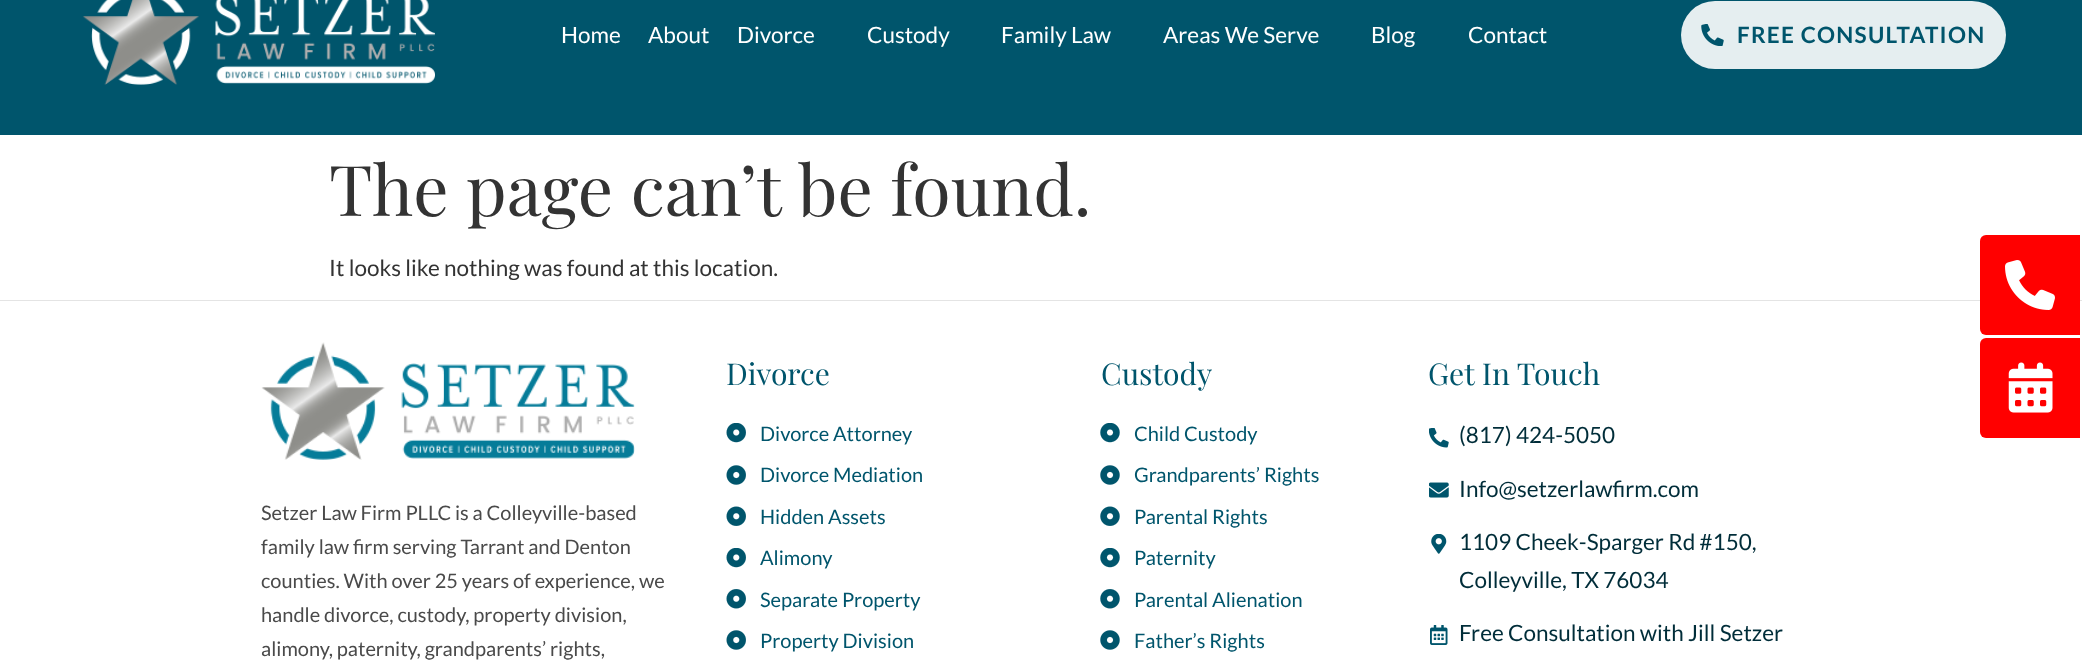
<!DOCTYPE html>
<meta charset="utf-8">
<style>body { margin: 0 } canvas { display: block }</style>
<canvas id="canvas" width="2082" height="668"></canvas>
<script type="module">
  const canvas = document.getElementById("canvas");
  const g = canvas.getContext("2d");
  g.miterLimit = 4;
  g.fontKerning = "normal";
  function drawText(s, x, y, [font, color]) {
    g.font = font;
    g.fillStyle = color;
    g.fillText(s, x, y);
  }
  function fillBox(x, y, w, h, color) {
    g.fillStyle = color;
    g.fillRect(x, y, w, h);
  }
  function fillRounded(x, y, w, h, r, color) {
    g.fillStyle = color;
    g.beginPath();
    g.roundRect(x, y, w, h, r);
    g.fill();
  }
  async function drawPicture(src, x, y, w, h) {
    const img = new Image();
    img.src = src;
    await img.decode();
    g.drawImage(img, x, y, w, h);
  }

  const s1 = ["22.5px Lato", "#FFFFFF"];
  const s2 = ["bold 22.5px Lato", "#00556C"];
  const s3 = ["70px Playfair Display", "#333333"];
  const s4 = ["22.5px Lato", "#333333"];
  const s5 = ["20px Lato", "#4A4A4A"];
  const s6 = ["30px Playfair Display", "#00556C"];
  const s7 = ["20px Lato", "#00556C"];
  const s8 = ["22.5px Lato", "#002D39"];

  fillBox(0, 0, 2082, 668, "#FFFFFF");
  fillBox(0, 0, 2082, 135, "#00556C");
  await drawPicture("pic1.png", 82, 0, 353, 85);
  drawText("Home", 561, 43, s1);
  drawText("About", 648, 43, s1);
  drawText("Divorce", 737, 43, s1);
  drawText("Custody", 867, 43, s1);
  drawText("Family Law", 1001, 43, s1);
  drawText("Areas We Serve", 1163, 43, s1);
  drawText("Blog", 1371, 43, s1);
  drawText("Contact", 1468, 43, s1);
  fillRounded(1681, 1, 325, 68, 34, "#E5EEF0");
  await drawPicture("pic2.png", 1701, 24, 23, 22);
  g.letterSpacing = "1.25px";
  drawText("FREE CONSULTATION", 1737, 43, s2);
  g.letterSpacing = "0px";
  drawText("The page can’t be found.", 329, 216, s3);
  drawText("It looks like nothing was found at this location.", 329, 276, s4);
  fillBox(0, 300, 2082, 1, "#E4E4E4");
  g.fillStyle = "#FF0000";
  g.beginPath();
  g.roundRect(1980, 235, 100, 100, [6, 0, 0, 6]);
  g.fill();
  await drawPicture("pic3.png", 2005, 260, 50, 50);
  g.beginPath();
  g.roundRect(1980, 338, 100, 100, [6, 0, 0, 6]);
  g.fill();
  await drawPicture("pic4.png", 2008, 362, 45, 51);
  await drawPicture("pic5.png", 261, 342, 374, 118);
  drawText("Setzer Law Firm PLLC is a Colleyville-based", 261, 520, s5);
  drawText("family law firm serving Tarrant and Denton", 261, 554, s5);
  drawText("counties. With over 25 years of experience, we", 261, 588, s5);
  drawText("handle divorce, custody, property division,", 261, 622, s5);
  drawText("alimony, paternity, grandparents’ rights,", 261, 656, s5);
  drawText("Divorce", 726, 385, s6);
  await drawPicture("pic6.png", 726, 423, 20, 20);
  drawText("Divorce Attorney", 760, 441, s7);
  await drawPicture("pic7.png", 726, 465, 20, 20);
  drawText("Divorce Mediation", 760, 482, s7);
  await drawPicture("pic8.png", 726, 506, 20, 20);
  drawText("Hidden Assets", 760, 524, s7);
  await drawPicture("pic6.png", 726, 548, 20, 20);
  drawText("Alimony", 760, 565, s7);
  await drawPicture("pic9.png", 726, 589, 20, 20);
  drawText("Separate Property", 760, 607, s7);
  await drawPicture("pic7.png", 726, 630, 20, 20);
  drawText("Property Division", 760, 648, s7);
  drawText("Custody", 1101, 385, s6);
  await drawPicture("pic10.png", 1100, 423, 20, 20);
  drawText("Child Custody", 1134, 441, s7);
  await drawPicture("pic11.png", 1100, 465, 20, 20);
  drawText("Grandparents’ Rights", 1134, 482, s7);
  await drawPicture("pic12.png", 1100, 506, 20, 20);
  drawText("Parental Rights", 1134, 524, s7);
  await drawPicture("pic10.png", 1100, 548, 20, 20);
  drawText("Paternity", 1134, 565, s7);
  await drawPicture("pic13.png", 1100, 589, 20, 20);
  drawText("Parental Alienation", 1134, 607, s7);
  await drawPicture("pic11.png", 1100, 630, 20, 20);
  drawText("Father’s Rights", 1134, 648, s7);
  drawText("Get In Touch", 1428, 385, s6);
  await drawPicture("pic14.png", 1429, 428, 20, 20);
  drawText("(817) 424-5050", 1459, 443, s8);
  await drawPicture("pic15.png", 1429, 482, 20, 16);
  drawText("Info@setzerlawfirm.com", 1459, 497, s8);
  await drawPicture("pic16.png", 1431, 534, 16, 20);
  drawText("1109 Cheek-Sparger Rd #150,", 1459, 550, s8);
  drawText("Colleyville, TX 76034", 1459, 588, s8);
  await drawPicture("pic17.png", 1430, 625, 18, 20);
  drawText("Free Consultation with Jill Setzer", 1459, 641, s8);
</script>
